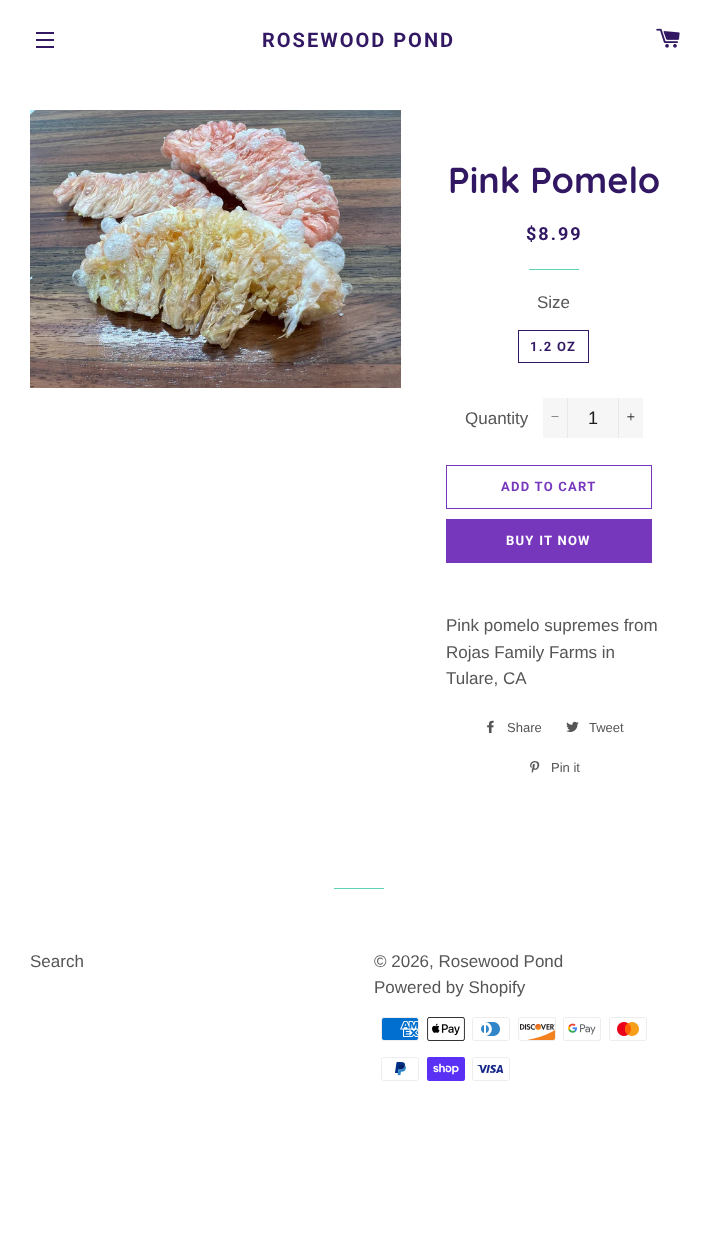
<!DOCTYPE html>
<meta charset="utf-8">
<style>body { margin: 0 } canvas { display: block }</style>
<canvas id="canvas" width="717" height="1243"></canvas>
<script type="module">
  const canvas = document.getElementById("canvas");
  const g = canvas.getContext("2d");
  g.miterLimit = 4;
  g.fontKerning = "normal";
  function drawText(s, x, y, [font, color]) {
    g.font = font;
    g.fillStyle = color;
    g.fillText(s, x, y);
  }
  function fillBox(x, y, w, h, color) {
    g.fillStyle = color;
    g.fillRect(x, y, w, h);
  }
  async function drawPicture(src, x, y, w, h) {
    const img = new Image();
    img.src = src;
    await img.decode();
    g.drawImage(img, x, y, w, h);
  }

  const s1 = ["bold 20px Roboto", "#321863"];
  const s2 = ["bold 36px Quicksand", "#321863"];
  const s3 = ["bold 18px Roboto", "#321863"];
  const s4 = ["17px Liberation Sans", "#565656"];
  const s5 = ["bold 13px Roboto", "#321863"];
  const s6 = ["18px Liberation Sans", "#1C1D1D"];
  const s7 = ["bold 13px Roboto", "#7737BD"];
  const s8 = ["bold 13px Roboto", "#FFFFFF"];
  const s9 = ["13px Liberation Sans", "#565656"];

  fillBox(0, 0, 717, 1243, "#FFFFFF");
  fillBox(36, 32, 18, 2, "#321863");
  fillBox(36, 39, 18, 2, "#321863");
  fillBox(36, 46, 18, 2, "#321863");
  g.letterSpacing = "2px";
  drawText("ROSEWOOD POND", 262, 47, s1);
  await drawPicture("pic1.png", 656, 28, 24, 20);
  await drawPicture("pic2.png", 30, 110, 371, 278);
  g.letterSpacing = "0px";
  drawText("Pink Pomelo", 448, 193, s2);
  g.letterSpacing = "2px";
  drawText("$8.99", 526, 240, s3);
  fillBox(529, 269, 50, 1, "#5DD2B4");
  g.letterSpacing = "0px";
  drawText("Size", 537, 308, s4);
  g.strokeStyle = "#321863";
  g.strokeRect(518.5, 330.5, 70, 32);
  g.letterSpacing = "1.25px";
  drawText("1.2 OZ", 530, 351, s5);
  g.letterSpacing = "0px";
  drawText("Quantity", 465, 424, s4);
  fillBox(543, 398, 100, 40, "#F6F6F6");
  fillBox(567, 398, 1, 40, "#E9E9E9");
  g.fillStyle = "#1C1D1D";
  g.beginPath();
  g.moveTo(551.5, 416.5);
  g.lineTo(558.5, 416.5);
  g.lineTo(558.5, 417);
  g.lineTo(551.5, 417);
  g.closePath();
  g.fill();
  drawText("1", 588, 424, s6);
  fillBox(618, 398, 1, 40, "#E9E9E9");
  await drawPicture("pic3.png", 627, 413, 8, 8);
  g.strokeStyle = "#7737BD";
  g.strokeRect(446.5, 465.5, 205, 43);
  g.letterSpacing = "1.25px";
  drawText("ADD TO CART", 501, 491, s7);
  fillBox(446, 519, 206, 44, "#7737BD");
  drawText("BUY IT NOW", 506, 545, s8);
  g.letterSpacing = "0px";
  drawText("Pink pomelo supremes from", 446, 631, s4);
  drawText("Rojas Family Farms in", 446, 658, s4);
  drawText("Tulare, CA", 446, 684, s4);
  await drawPicture("pic4.png", 487, 720, 7, 14);
  drawText("Share", 507, 732, s9);
  await drawPicture("pic5.png", 566, 721, 13, 11);
  drawText("Tweet", 589, 732, s9);
  await drawPicture("pic6.png", 530, 761, 10, 12);
  drawText("Pin it", 551, 772, s9);
  fillBox(334, 888, 50, 1, "#5DD2B4");
  drawText("Search", 30, 967, s4);
  drawText("© 2026, Rosewood Pond", 374, 967, s4);
  drawText("Powered by Shopify", 374, 993, s4);
  await drawPicture("pic7.png", 381, 1017, 38, 24);
  await drawPicture("pic8.png", 427, 1017, 38, 24);
  await drawPicture("pic9.png", 472, 1017, 38, 24);
  await drawPicture("pic10.png", 518, 1017, 38, 24);
  await drawPicture("pic11.png", 563, 1017, 38, 24);
  await drawPicture("pic12.png", 609, 1017, 38, 24);
  await drawPicture("pic13.png", 381, 1057, 38, 24);
  await drawPicture("pic14.png", 427, 1057, 38, 24);
  await drawPicture("pic15.png", 472, 1057, 38, 24);
</script>
